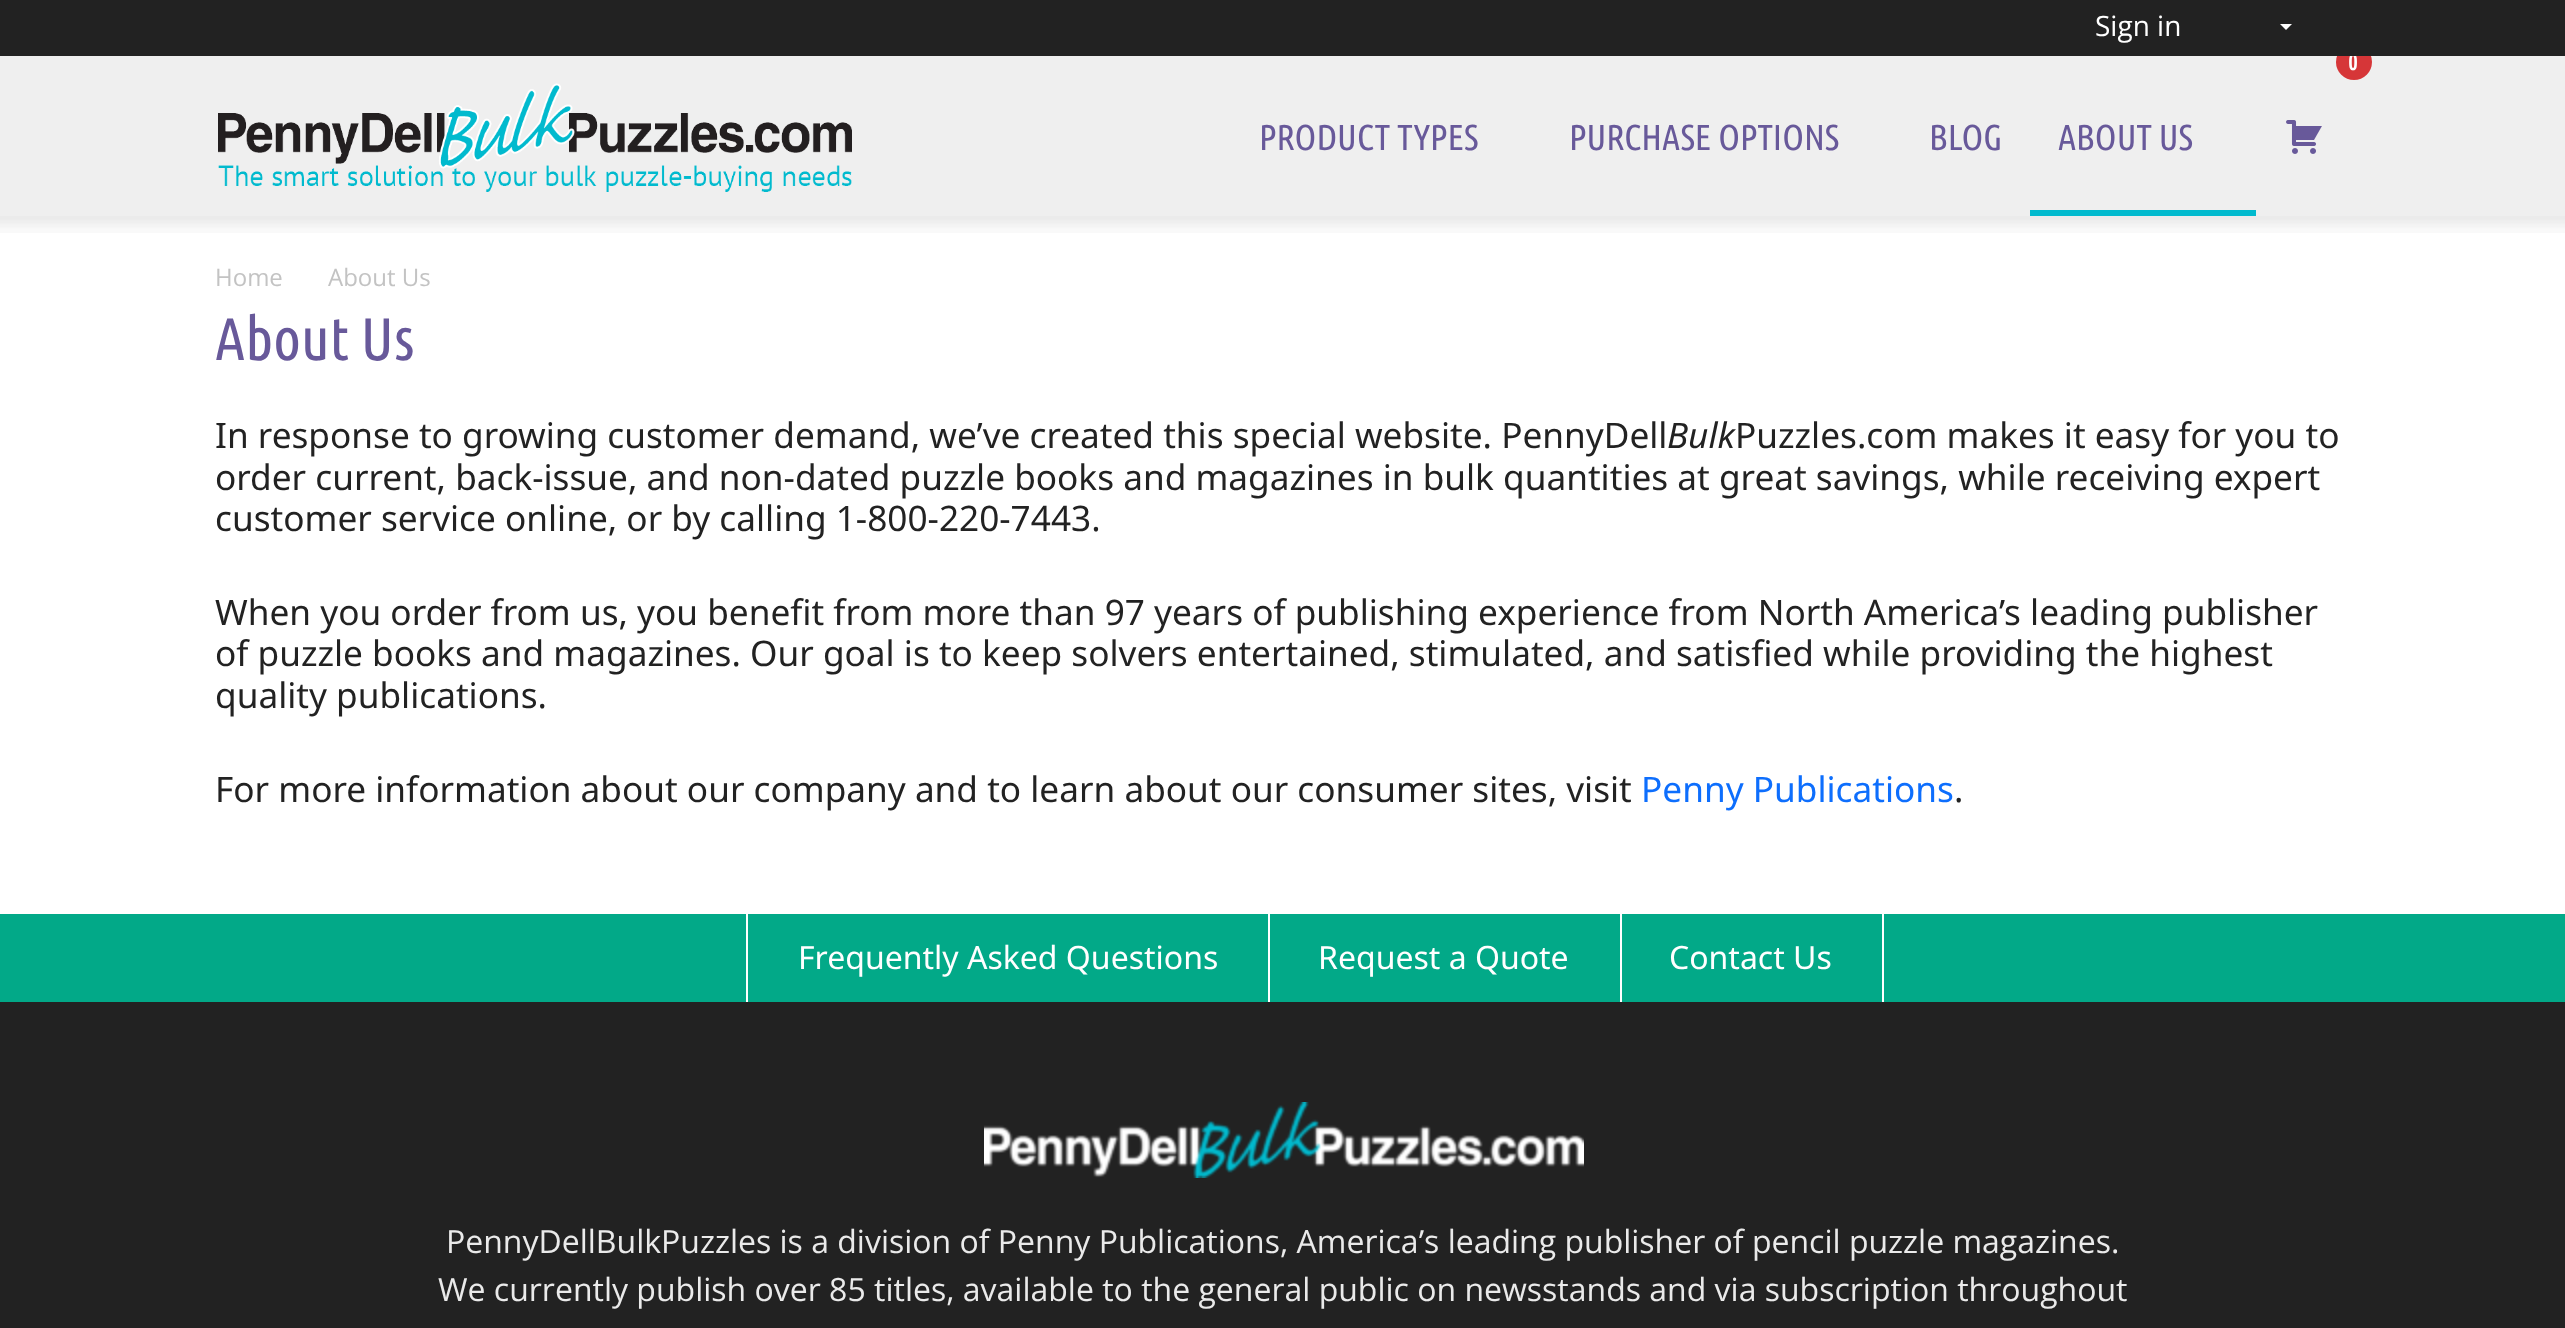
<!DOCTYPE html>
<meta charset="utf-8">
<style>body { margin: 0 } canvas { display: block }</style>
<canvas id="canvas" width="2565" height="1328"></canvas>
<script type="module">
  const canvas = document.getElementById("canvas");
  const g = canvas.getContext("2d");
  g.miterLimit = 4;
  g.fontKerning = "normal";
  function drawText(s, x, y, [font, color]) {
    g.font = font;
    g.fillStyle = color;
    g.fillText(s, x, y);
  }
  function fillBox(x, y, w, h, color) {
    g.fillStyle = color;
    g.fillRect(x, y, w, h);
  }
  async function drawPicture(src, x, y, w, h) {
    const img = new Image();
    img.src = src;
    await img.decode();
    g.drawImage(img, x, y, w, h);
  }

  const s1 = ["bold 22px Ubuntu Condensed", "#FFFFFF"];
  const s2 = ["28px Open Sans", "#FFFFFF"];
  const s3 = ["36px Ubuntu Condensed", "#68599A"];
  const s4 = ["24px Open Sans", "#C3C3C3"];
  const s5 = ["60px Ubuntu Condensed", "#68599A"];
  const s6 = ["35.2px Noto Sans", "#222222"];
  const s7 = ["italic 35.2px Noto Sans", "#222222"];
  const s8 = ["35.2px Noto Sans", "#0D6EFD"];
  const s9 = ["32px Noto Sans", "#FFFFFF"];
  const s10 = ["32px Open Sans", "#EAEAEA"];

  fillBox(0, 0, 2565, 1328, "#FFFFFF");
  fillBox(0, 56, 2565, 160, "#EFEFEF");
  g.fillStyle = "#D63638";
  g.beginPath();
  g.arc(2354, 62, 18, 0, Math.PI * 2);
  g.fill();
  drawText("0", 2348, 70, s1);
  fillBox(0, 0, 2565, 56, "#222222");
  drawText("Sign in", 2095, 36, s2);
  g.beginPath();
  g.moveTo(2280, 24);
  g.lineTo(2292, 24);
  g.lineTo(2286, 30);
  g.closePath();
  g.fill();
  await drawPicture("pic1.png", 218, 83, 634, 109);
  await drawPicture("pic2.png", 2286, 120, 36, 34);
  drawText("PRODUCT TYPES", 1259, 150, s3);
  drawText("PURCHASE OPTIONS", 1569, 150, s3);
  drawText("BLOG", 1929, 150, s3);
  drawText("ABOUT US", 2058, 150, s3);
  fillBox(2030, 210, 226, 6, "#01BACE");
  await drawPicture("pic3.png", 0, 216, 2565, 17);
  drawText("Home", 215, 286, s4);
  drawText("About Us", 328, 286, s4);
  drawText("About Us", 215, 360, s5);
  drawText("In response to growing customer demand, we’ve created this special website. PennyDell", 215, 448, s6);
  drawText("Bulk", 1667, 448, s7);
  drawText("Puzzles.com makes it easy for you to", 1735, 448, s6);
  drawText("order current, back-issue, and non-dated puzzle books and magazines in bulk quantities at great savings, while receiving expert", 215, 490, s6);
  drawText("customer service online, or by calling 1-800-220-7443.", 215, 531, s6);
  drawText("When you order from us, you benefit from more than 97 years of publishing experience from North America’s leading publisher", 215, 625, s6);
  drawText("of puzzle books and magazines. Our goal is to keep solvers entertained, stimulated, and satisfied while providing the highest", 215, 666, s6);
  drawText("quality publications.", 215, 708, s6);
  drawText("For more information about our company and to learn about our consumer sites, visit", 215, 802, s6);
  drawText("Penny Publications", 1641, 802, s8);
  drawText(".", 1954, 802, s6);
  fillBox(0, 914, 2565, 88, "#02A988");
  fillBox(1268, 914, 2, 88, "#FFFFFF");
  fillBox(746, 914, 2, 88, "#FFFFFF");
  drawText("Frequently Asked Questions", 798, 969, s9);
  fillBox(1620, 914, 2, 88, "#FFFFFF");
  drawText("Request a Quote", 1318, 969, s9);
  fillBox(1882, 914, 2, 88, "#FFFFFF");
  drawText("Contact Us", 1669, 969, s9);
  fillBox(0, 1002, 2565, 326, "#222222");
  await drawPicture("pic4.png", 984, 1102, 600, 76);
  drawText("PennyDellBulkPuzzles is a division of Penny Publications, America’s leading publisher of pencil puzzle magazines.", 446, 1253, s10);
  drawText("We currently publish over 85 titles, available to the general public on newsstands and via subscription throughout", 438, 1301, s10);
</script>
